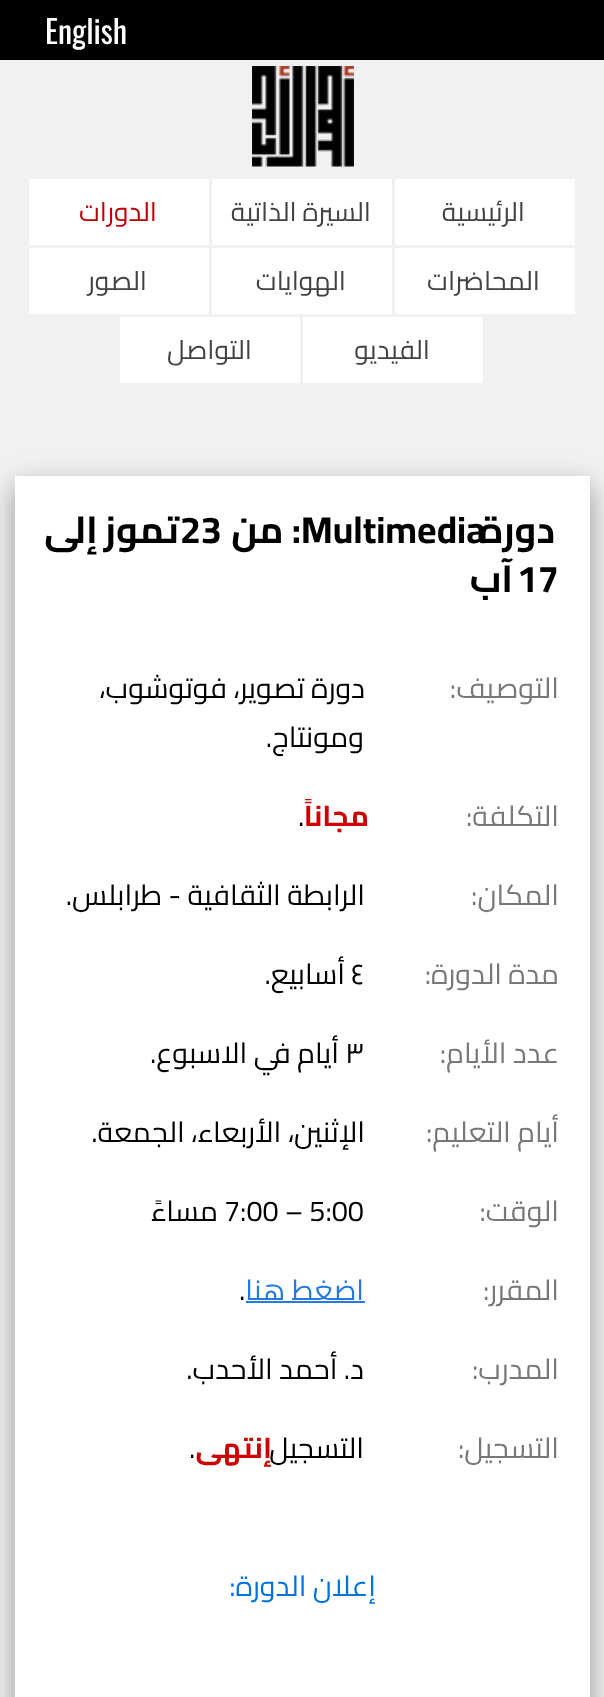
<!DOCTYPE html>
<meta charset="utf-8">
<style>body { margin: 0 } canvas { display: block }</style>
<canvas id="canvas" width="604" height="1697"></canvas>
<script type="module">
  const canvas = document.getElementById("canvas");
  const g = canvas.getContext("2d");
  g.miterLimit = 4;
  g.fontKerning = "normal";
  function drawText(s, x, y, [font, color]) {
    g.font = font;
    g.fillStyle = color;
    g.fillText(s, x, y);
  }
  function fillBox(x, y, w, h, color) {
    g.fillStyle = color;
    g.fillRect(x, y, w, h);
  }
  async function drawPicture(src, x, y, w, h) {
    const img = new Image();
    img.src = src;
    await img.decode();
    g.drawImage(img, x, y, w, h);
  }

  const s1 = ["32px Oswald", "#FFFFFF"];
  const s2 = ["26.5px Cairo", "#424242"];
  const s3 = ["26.5px Cairo", "#BC0003"];
  const s4 = ["bold 37.5px Cairo", "#000000"];
  const s5 = ["28.75px Cairo", "#787878"];
  const s6 = ["28.75px Cairo", "#000000"];
  const s7 = ["bold 28.75px Cairo", "#D00000"];
  const s8 = ["28.75px Cairo", "#247AE1"];
  const s9 = ["28.75px Cairo", "#0072DD"];

  fillBox(0, 0, 604, 1697, "#F1F1F1");
  fillBox(0, 0, 604, 60, "#000000");
  drawText("English", 45, 44, s1);
  await drawPicture("pic1.png", 252, 66, 102, 101);
  fillBox(395, 179, 180, 66, "#FFFFFF");
  g.direction = "rtl";
  drawText("الرئيسية", 525, 221, s2);
  fillBox(212, 179, 180, 66, "#FFFFFF");
  drawText("السيرة الذاتية", 371, 221, s2);
  fillBox(29, 179, 180, 66, "#FFFFFF");
  drawText("الدورات", 157, 221, s3);
  fillBox(395, 248, 180, 66, "#FFFFFF");
  drawText("المحاضرات", 540, 290, s2);
  fillBox(212, 248, 180, 66, "#FFFFFF");
  drawText("الهوايات", 346, 290, s2);
  fillBox(29, 248, 180, 66, "#FFFFFF");
  drawText("الصور", 147, 290, s2);
  fillBox(303, 317, 180, 66, "#FFFFFF");
  drawText("الفيديو", 430, 359, s2);
  fillBox(120, 317, 180, 66, "#FFFFFF");
  drawText("التواصل", 252, 359, s2);
  g.fillStyle = "rgba(0, 0, 0, 0.19)";
  g.filter = "blur(15px)";
  g.beginPath();
  g.rect(15, 485, 575, 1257);
  g.fill();
  g.filter = "none";
  g.fillStyle = "rgba(0, 0, 0, 0.2)";
  g.filter = "blur(12px)";
  g.beginPath();
  g.rect(15, 488, 575, 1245);
  g.fill();
  g.filter = "none";
  fillBox(15, 476, 575, 1221, "#FFFFFF");
  g.direction = "ltr";
  drawText("Multimedia", 301, 543, s4);
  g.direction = "rtl";
  drawText("دورة", 555, 543, s4);
  drawText(": من", 301, 543, s4);
  g.wordSpacing = "-2px";
  drawText("تموز إلى", 179, 543, s4);
  g.wordSpacing = "0px";
  g.direction = "ltr";
  drawText("23", 180, 543, s4);
  drawText("17", 517, 592, s4);
  g.direction = "rtl";
  drawText("آب", 513, 592, s4);
  drawText("التوصيف:", 559, 698, s5);
  drawText("دورة تصوير، فوتوشوب،", 365, 698, s6);
  drawText("ومونتاج.", 364, 747, s6);
  drawText("التكلفة:", 559, 826, s5);
  drawText("مجاناً", 369, 826, s7);
  g.direction = "ltr";
  drawText(".", 298, 826, s6);
  g.direction = "rtl";
  drawText("المكان:", 559, 905, s5);
  drawText("الرابطة الثقافية - طرابلس.", 365, 905, s6);
  drawText("مدة الدورة:", 559, 984, s5);
  g.direction = "ltr";
  drawText("٤", 351, 984, s6);
  g.direction = "rtl";
  drawText("أسابيع.", 345, 984, s6);
  drawText("عدد الأيام:", 559, 1063, s5);
  g.direction = "ltr";
  drawText("٣", 345, 1063, s6);
  g.direction = "rtl";
  drawText("أيام في الاسبوع.", 339, 1063, s6);
  drawText("أيام التعليم:", 559, 1142, s5);
  drawText("الإثنين، الأربعاء، الجمعة.", 365, 1142, s6);
  drawText("الوقت:", 559, 1221, s5);
  g.direction = "ltr";
  drawText("7:00 – 5:00", 224, 1221, s6);
  g.direction = "rtl";
  drawText("مساءً", 218, 1221, s6);
  drawText("المقرر:", 559, 1300, s5);
  drawText("اضغط هنا", 364, 1300, s8);
  fillBox(246, 1301, 119, 2, "#247AE1");
  g.direction = "ltr";
  drawText(".", 239, 1300, s6);
  g.direction = "rtl";
  drawText("المدرب:", 559, 1379, s5);
  drawText("د. أحمد الأحدب.", 364, 1379, s6);
  drawText("التسجيل:", 559, 1458, s5);
  drawText("التسجيل", 364, 1458, s6);
  drawText("إنتهى", 272, 1458, s7);
  g.direction = "ltr";
  drawText(".", 189, 1458, s6);
  g.direction = "rtl";
  drawText("إعلان الدورة:", 376, 1596, s9);
</script>
